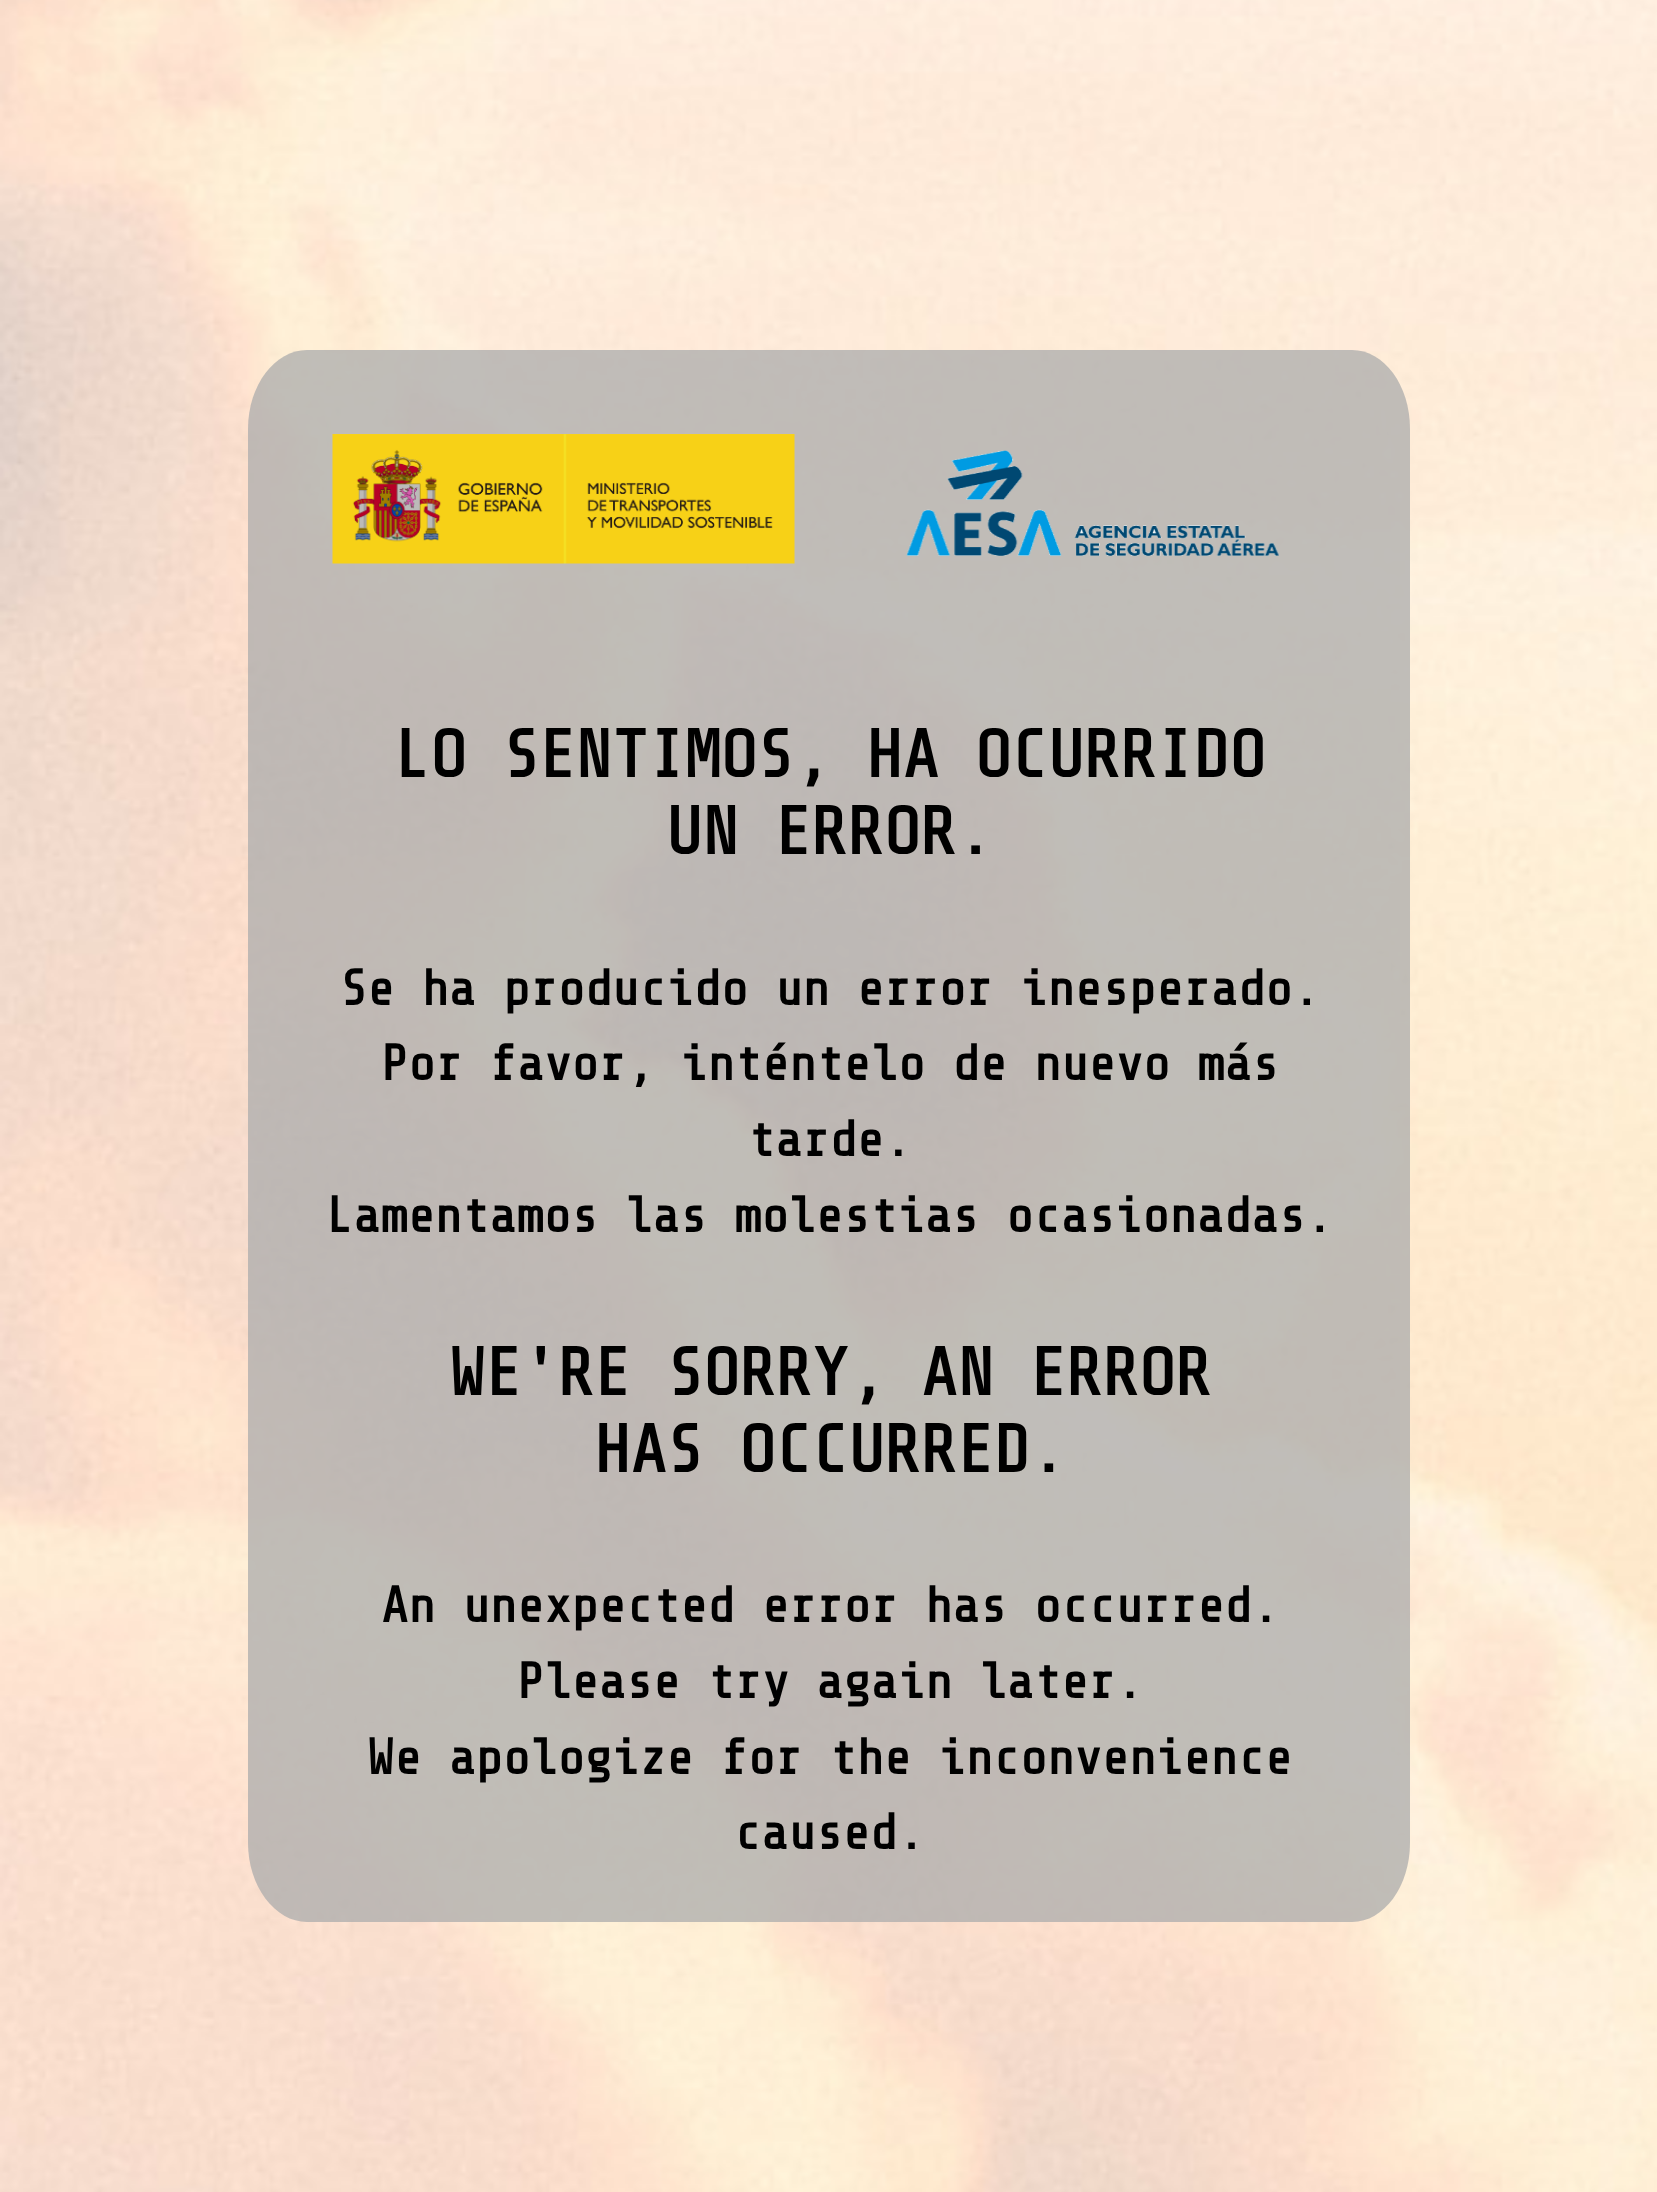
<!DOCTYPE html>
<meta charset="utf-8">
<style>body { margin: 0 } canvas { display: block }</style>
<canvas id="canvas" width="1657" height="2192"></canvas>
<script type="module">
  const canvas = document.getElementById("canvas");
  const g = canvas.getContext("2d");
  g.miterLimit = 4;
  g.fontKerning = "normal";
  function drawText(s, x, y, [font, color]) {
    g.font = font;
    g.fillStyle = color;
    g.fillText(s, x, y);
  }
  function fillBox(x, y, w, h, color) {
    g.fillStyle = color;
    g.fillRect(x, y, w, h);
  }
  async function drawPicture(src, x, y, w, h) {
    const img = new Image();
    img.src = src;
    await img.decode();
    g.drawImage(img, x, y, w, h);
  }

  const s1 = ["bold 67.25px Share Tech Mono", "#000000"];
  const s2 = ["bold 50.4px Share Tech Mono", "#000000"];

  fillBox(0, 0, 1657, 2192, "#FFFFFF");
  await drawPicture("pic1.png", 0, 0, 1657, 2192);
  g.fillStyle = "rgba(173, 173, 173, 0.77)";
  g.beginPath();
  g.moveTo(307, 350);
  g.lineTo(1352, 350);
  g.bezierCurveTo(1384, 350, 1410, 385, 1410, 429);
  g.lineTo(1410, 1843);
  g.bezierCurveTo(1410, 1886, 1384, 1922, 1352, 1922);
  g.lineTo(307, 1922);
  g.bezierCurveTo(275, 1922, 248, 1886, 248, 1843);
  g.lineTo(248, 429);
  g.bezierCurveTo(248, 385, 275, 350, 307, 350);
  g.closePath();
  g.fill();
  await drawPicture("pic2.png", 332, 434, 463, 130);
  await drawPicture("pic3.png", 906, 450, 373, 106);
  drawText("LO SENTIMOS, HA OCURRIDO", 394, 777, s1);
  drawText("UN ERROR.", 666, 854, s1);
  drawText("Se ha producido un error inesperado.", 340, 1005, s2);
  drawText("Por favor, inténtelo de nuevo más", 381, 1080, s2);
  drawText("tarde.", 748, 1156, s2);
  drawText("Lamentamos las molestias ocasionadas.", 326, 1232, s2);
  drawText("WE'RE SORRY, AN ERROR", 449, 1395, s1);
  drawText("HAS OCCURRED.", 594, 1472, s1);
  drawText("An unexpected error has occurred.", 381, 1622, s2);
  drawText("Please try again later.", 517, 1698, s2);
  drawText("We apologize for the inconvenience", 367, 1774, s2);
  drawText("caused.", 734, 1849, s2);
</script>
